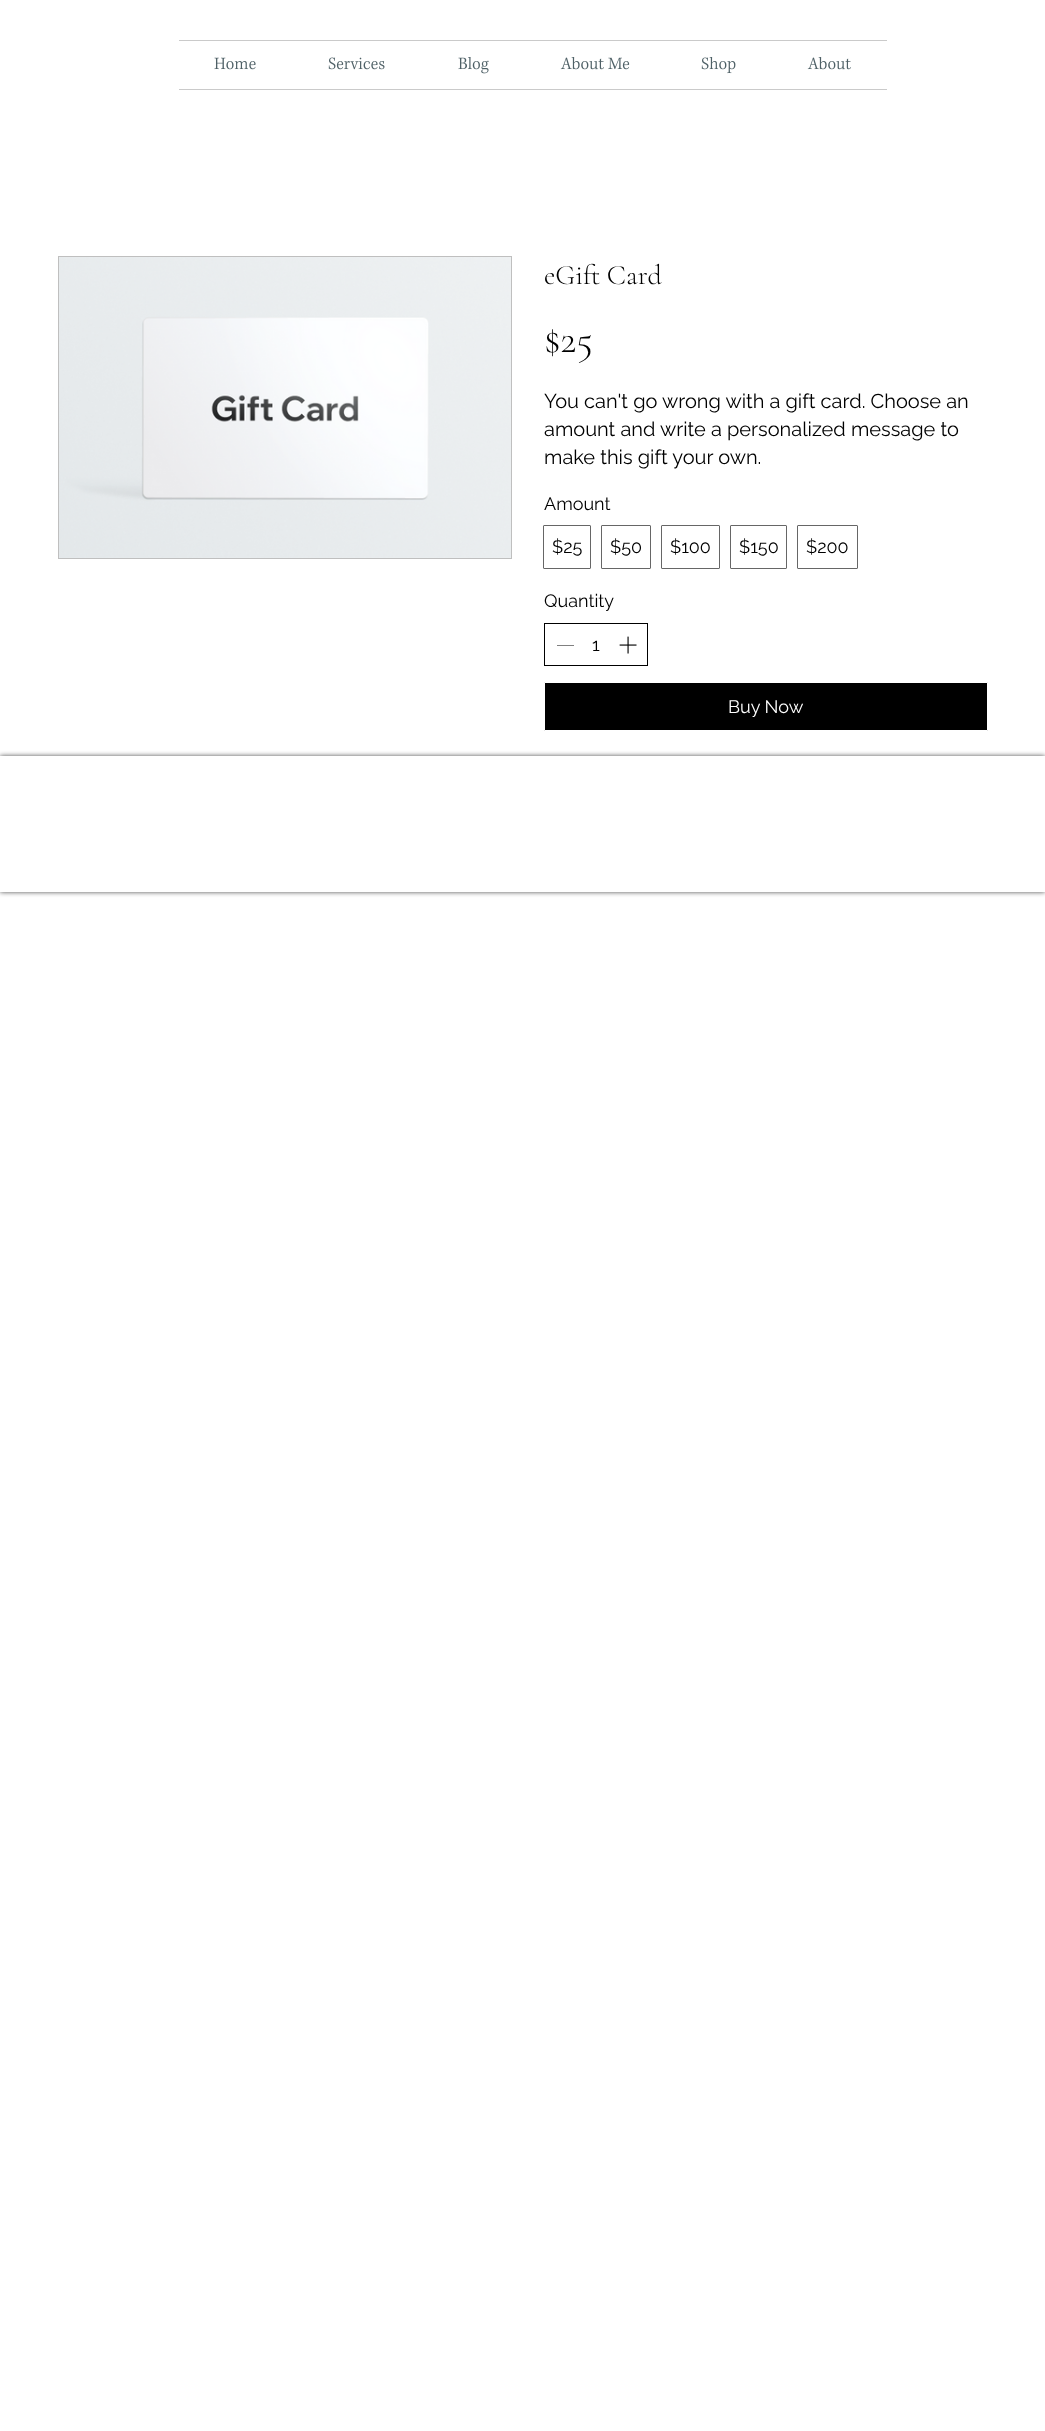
<!DOCTYPE html>
<meta charset="utf-8">
<style>body { margin: 0 } canvas { display: block }</style>
<canvas id="canvas" width="1045" height="2431"></canvas>
<script type="module">
  const canvas = document.getElementById("canvas");
  const g = canvas.getContext("2d");
  g.miterLimit = 4;
  g.fontKerning = "normal";
  function drawText(s, x, y, [font, color]) {
    g.font = font;
    g.fillStyle = color;
    g.fillText(s, x, y);
  }
  function fillBox(x, y, w, h, color) {
    g.fillStyle = color;
    g.fillRect(x, y, w, h);
  }
  async function drawPicture(src, x, y, w, h) {
    const img = new Image();
    img.src = src;
    await img.decode();
    g.drawImage(img, x, y, w, h);
  }

  const s1 = ["300 28px Cormorant Garamond", "#000000"];
  const s2 = ["300 40px Cormorant Garamond", "#000000"];
  const s3 = ["20px Raleway", "#000000"];
  const s4 = ["18px Raleway", "#000000"];
  const s5 = ["18px Raleway", "#FFFFFF"];

  fillBox(0, 0, 1045, 2431, "#FFFFFF");
  fillBox(179, 40, 708, 1, "#CACACA");
  fillBox(179, 89, 708, 1, "#CACACA");
  await drawPicture("pic1.png", 214, 57, 42, 13);
  await drawPicture("pic2.png", 328, 57, 57, 13);
  await drawPicture("pic3.png", 458, 57, 31, 17);
  await drawPicture("pic4.png", 560, 57, 70, 13);
  await drawPicture("pic5.png", 701, 57, 35, 17);
  await drawPicture("pic6.png", 807, 57, 44, 13);
  g.strokeStyle = "#BFBFBF";
  g.strokeRect(58.5, 256.5, 453, 302);
  await drawPicture("pic7.png", 59, 257, 452, 301);
  drawText("eGift Card", 544, 284, s1);
  drawText("$25", 544, 352, s2);
  drawText("You can't go wrong with a gift card. Choose an", 544, 408, s3);
  drawText("amount and write a personalized message to", 544, 436, s3);
  drawText("make this gift your own.", 544, 464, s3);
  drawText("Amount", 544, 510, s4);
  g.beginPath();
  g.roundRect(543.5, 525.5, 47, 43, 0.5);
  g.strokeStyle = "#666666";
  g.stroke();
  drawText("$25", 552, 553, s4);
  g.beginPath();
  g.roundRect(601.5, 525.5, 49, 43, 0.5);
  g.stroke();
  drawText("$50", 610, 553, s4);
  g.beginPath();
  g.roundRect(661.5, 525.5, 58, 43, 0.5);
  g.stroke();
  drawText("$100", 670, 553, s4);
  g.beginPath();
  g.roundRect(730.5, 525.5, 56, 43, 0.5);
  g.stroke();
  drawText("$150", 739, 553, s4);
  g.beginPath();
  g.roundRect(797.5, 525.5, 60, 43, 0.5);
  g.stroke();
  drawText("$200", 806, 553, s4);
  drawText("Quantity", 544, 607, s4);
  g.strokeStyle = "#000000";
  g.strokeRect(544.5, 623.5, 103, 42);
  fillBox(557, 645, 17, 1, "#808080");
  drawText("1", 592, 651, s4);
  await drawPicture("pic8.png", 619, 636, 18, 18);
  g.beginPath();
  g.roundRect(544.5, 682.5, 443, 48, 0.5);
  g.fill();
  g.strokeStyle = "#FFFFFF";
  g.stroke();
  drawText("Buy Now", 728, 713, s5);
  g.save();
  g.beginPath();
  g.moveTo(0, 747);
  g.lineTo(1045, 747);
  g.lineTo(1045, 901);
  g.lineTo(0, 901);
  g.closePath();
  g.moveTo(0, 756);
  g.lineTo(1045, 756);
  g.lineTo(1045, 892);
  g.lineTo(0, 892);
  g.closePath();
  g.clip("evenodd");
  g.fillStyle = "rgba(0, 0, 0, 0.7)";
  g.filter = "blur(2.5px)";
  g.beginPath();
  g.rect(0, 756, 1045, 136);
  g.fill();
  g.filter = "none";
  g.restore();
</script>
